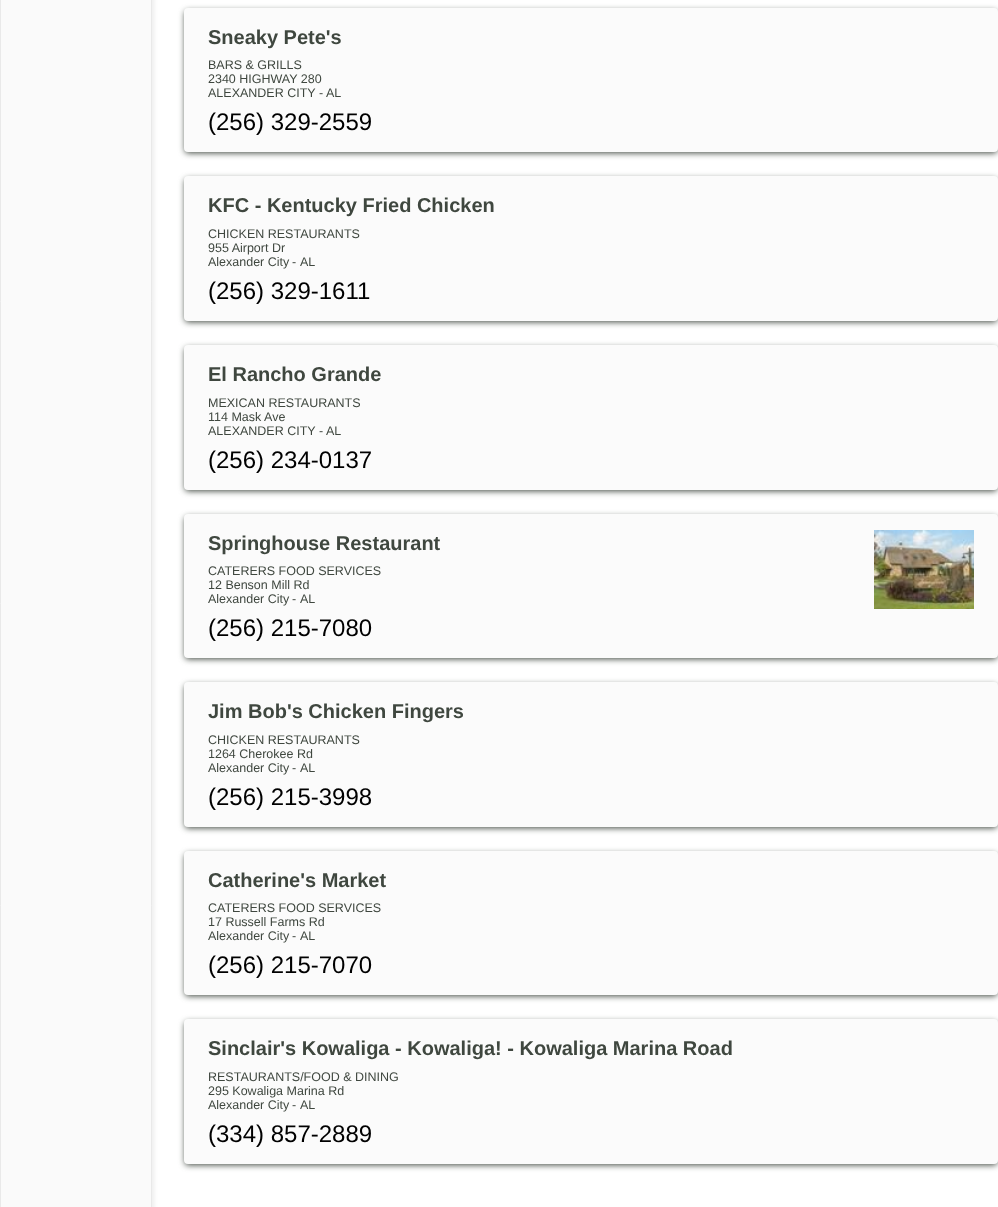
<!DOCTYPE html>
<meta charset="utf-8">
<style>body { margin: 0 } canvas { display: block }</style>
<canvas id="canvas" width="998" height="1207"></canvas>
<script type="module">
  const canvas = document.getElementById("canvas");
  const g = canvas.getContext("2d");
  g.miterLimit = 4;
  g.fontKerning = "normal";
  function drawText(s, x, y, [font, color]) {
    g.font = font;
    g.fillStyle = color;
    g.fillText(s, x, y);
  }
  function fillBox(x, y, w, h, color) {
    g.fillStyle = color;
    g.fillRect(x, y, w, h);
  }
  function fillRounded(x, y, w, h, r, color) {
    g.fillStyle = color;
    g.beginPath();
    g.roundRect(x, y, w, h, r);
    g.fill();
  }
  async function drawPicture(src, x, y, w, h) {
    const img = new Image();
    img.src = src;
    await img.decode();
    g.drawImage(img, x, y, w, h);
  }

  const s1 = ["bold 20px Liberation Sans", "#3F473F"];
  const s2 = ["12.5px Liberation Sans", "#3F473F"];
  const s3 = ["24px Liberation Sans", "#000000"];

  fillBox(0, 0, 998, 1207, "#FFFFFF");
  g.fillStyle = "rgba(0, 0, 0, 0.05)";
  g.filter = "blur(1.5px)";
  g.beginPath();
  g.roundRect(3, -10, 152, 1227, 5);
  g.fill();
  g.filter = "none";
  g.fillStyle = "#FAFAFA";
  g.beginPath();
  g.rect(0.5, -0.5, 151, 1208);
  g.fill();
  g.strokeStyle = "#E9E9E9";
  g.stroke();
  g.fillStyle = "#3F473F";
  g.filter = "blur(3px)";
  g.beginPath();
  g.roundRect(185, 11, 812, 142, 3);
  g.fill();
  g.filter = "none";
  fillRounded(184, 8, 814, 144, 4, "#FBFBFB");
  drawText("Sneaky Pete's", 208, 44, s1);
  drawText("BARS & GRILLS", 208, 69, s2);
  drawText("2340 HIGHWAY 280", 208, 83, s2);
  drawText("ALEXANDER CITY", 208, 97, s2);
  drawText("-", 319, 97, s2);
  drawText("AL", 326, 97, s2);
  drawText("(256) 329-2559", 208, 130, s3);
  g.fillStyle = "#3F473F";
  g.filter = "blur(3px)";
  g.beginPath();
  g.roundRect(185, 179, 812, 143, 3);
  g.fill();
  g.filter = "none";
  fillRounded(184, 176, 814, 145, 4, "#FBFBFB");
  drawText("KFC - Kentucky Fried Chicken", 208, 212, s1);
  drawText("CHICKEN RESTAURANTS", 208, 238, s2);
  drawText("955 Airport Dr", 208, 252, s2);
  drawText("Alexander City", 208, 266, s2);
  drawText("-", 292, 266, s2);
  drawText("AL", 300, 266, s2);
  drawText("(256) 329-1611", 208, 299, s3);
  g.fillStyle = "#3F473F";
  g.filter = "blur(3px)";
  g.beginPath();
  g.roundRect(185, 348, 812, 143, 3);
  g.fill();
  g.filter = "none";
  fillRounded(184, 345, 814, 145, 4, "#FBFBFB");
  drawText("El Rancho Grande", 208, 381, s1);
  drawText("MEXICAN RESTAURANTS", 208, 407, s2);
  drawText("114 Mask Ave", 208, 421, s2);
  drawText("ALEXANDER CITY", 208, 435, s2);
  drawText("-", 319, 435, s2);
  drawText("AL", 326, 435, s2);
  drawText("(256) 234-0137", 208, 468, s3);
  g.fillStyle = "#3F473F";
  g.filter = "blur(3px)";
  g.beginPath();
  g.roundRect(185, 517, 812, 142, 3);
  g.fill();
  g.filter = "none";
  fillRounded(184, 514, 814, 144, 4, "#FBFBFB");
  drawText("Springhouse Restaurant", 208, 550, s1);
  await drawPicture("pic1.png", 874, 530, 100, 79);
  drawText("CATERERS FOOD SERVICES", 208, 575, s2);
  drawText("12 Benson Mill Rd", 208, 589, s2);
  drawText("Alexander City", 208, 603, s2);
  drawText("-", 292, 603, s2);
  drawText("AL", 300, 603, s2);
  drawText("(256) 215-7080", 208, 636, s3);
  g.fillStyle = "#3F473F";
  g.filter = "blur(3px)";
  g.beginPath();
  g.roundRect(185, 685, 812, 143, 3);
  g.fill();
  g.filter = "none";
  fillRounded(184, 682, 814, 145, 4, "#FBFBFB");
  drawText("Jim Bob's Chicken Fingers", 208, 718, s1);
  drawText("CHICKEN RESTAURANTS", 208, 744, s2);
  drawText("1264 Cherokee Rd", 208, 758, s2);
  drawText("Alexander City", 208, 772, s2);
  drawText("-", 292, 772, s2);
  drawText("AL", 300, 772, s2);
  drawText("(256) 215-3998", 208, 805, s3);
  g.fillStyle = "#3F473F";
  g.filter = "blur(3px)";
  g.beginPath();
  g.roundRect(185, 854, 812, 142, 3);
  g.fill();
  g.filter = "none";
  fillRounded(184, 851, 814, 144, 4, "#FBFBFB");
  drawText("Catherine's Market", 208, 887, s1);
  drawText("CATERERS FOOD SERVICES", 208, 912, s2);
  drawText("17 Russell Farms Rd", 208, 926, s2);
  drawText("Alexander City", 208, 940, s2);
  drawText("-", 292, 940, s2);
  drawText("AL", 300, 940, s2);
  drawText("(256) 215-7070", 208, 973, s3);
  g.fillStyle = "#3F473F";
  g.filter = "blur(3px)";
  g.beginPath();
  g.roundRect(185, 1022, 812, 143, 3);
  g.fill();
  g.filter = "none";
  fillRounded(184, 1019, 814, 145, 4, "#FBFBFB");
  drawText("Sinclair's Kowaliga - Kowaliga! - Kowaliga Marina Road", 208, 1055, s1);
  drawText("RESTAURANTS/FOOD & DINING", 208, 1081, s2);
  drawText("295 Kowaliga Marina Rd", 208, 1095, s2);
  drawText("Alexander City", 208, 1109, s2);
  drawText("-", 292, 1109, s2);
  drawText("AL", 300, 1109, s2);
  drawText("(334) 857-2889", 208, 1142, s3);
</script>
